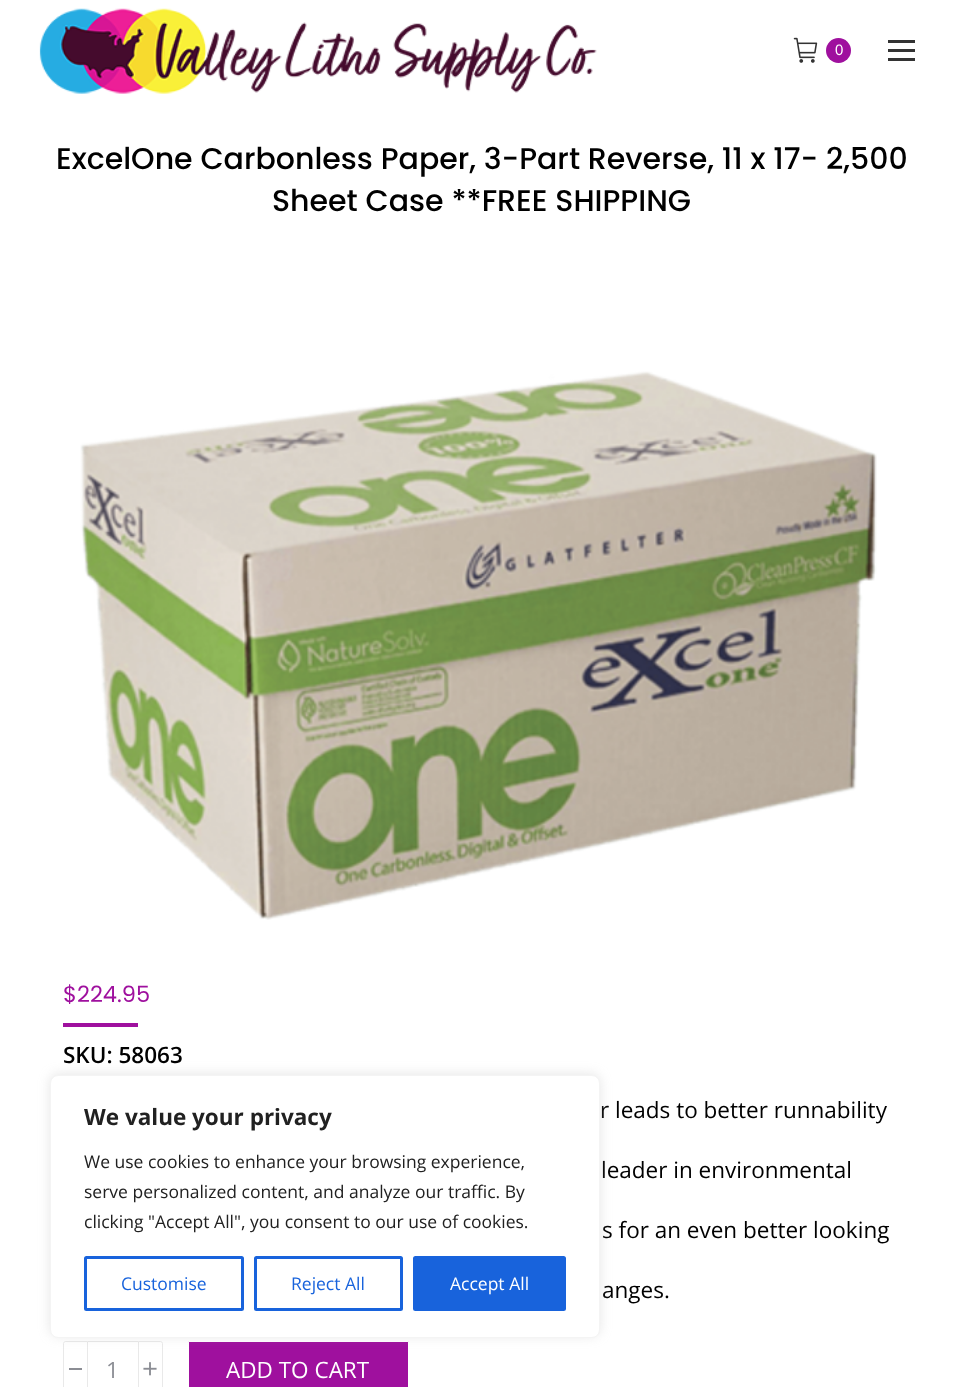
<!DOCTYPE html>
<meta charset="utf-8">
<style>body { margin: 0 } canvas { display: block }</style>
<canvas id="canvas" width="963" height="1387"></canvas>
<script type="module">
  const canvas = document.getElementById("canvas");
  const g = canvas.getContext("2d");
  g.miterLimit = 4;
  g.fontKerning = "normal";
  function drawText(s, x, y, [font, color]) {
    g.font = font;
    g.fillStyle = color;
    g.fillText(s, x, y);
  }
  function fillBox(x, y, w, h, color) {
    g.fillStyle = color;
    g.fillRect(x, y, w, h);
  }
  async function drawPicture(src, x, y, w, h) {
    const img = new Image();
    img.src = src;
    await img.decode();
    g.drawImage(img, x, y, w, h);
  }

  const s1 = ["15px Liberation Sans", "#FFFFFF"];
  const s2 = ["500 30px Poppins", "#000000"];
  const s3 = ["22.5px Poppins", "#9F109E"];
  const s4 = ["600 22.5px Open Sans", "#000000"];
  const s5 = ["22.5px Open Sans", "#000000"];
  const s6 = ["22.5px Open Sans", "#8B8D94"];
  const s7 = ["22.5px Open Sans", "#FFFFFF"];
  const s8 = ["bold 22.5px Open Sans", "#212121"];
  const s9 = ["17.5px Open Sans", "#212121"];
  const s10 = ["17.5px Open Sans", "#1863DC"];
  const s11 = ["17.5px Open Sans", "#FFFFFF"];

  fillBox(0, 0, 963, 1387, "#FFFFFF");
  await drawPicture("pic1.png", 39, 8, 558, 86);
  await drawPicture("pic2.png", 793, 37, 25, 26);
  g.fillStyle = "#9F109E";
  g.beginPath();
  g.arc(838.5, 50.5, 12.5, 0, Math.PI * 2);
  g.fill();
  drawText("0", 835, 55, s1);
  fillBox(888, 40, 27, 3, "#333333");
  fillBox(888, 49, 27, 3, "#333333");
  fillBox(888, 58, 27, 3, "#333333");
  drawText("ExcelOne Carbonless Paper, 3-Part Reverse, 11 x 17- 2,500", 56, 169, s2);
  drawText("Sheet Case **FREE SHIPPING", 272, 211, s2);
  await drawPicture("pic3.png", 80, 371, 797, 549);
  drawText("$224.95", 63, 1002, s3);
  fillBox(63, 1023, 75, 4, "#9F109E");
  drawText("SKU: 58063", 63, 1063, s4);
  drawText("r leads to better runnability", 600, 1118, s5);
  drawText("leader in environmental", 601, 1178, s5);
  drawText("s for an even better looking", 602, 1238, s5);
  drawText("anges.", 602, 1298, s5);
  g.beginPath();
  g.moveTo(65.5, 1341.5);
  g.lineTo(87.5, 1341.5);
  g.lineTo(87.5, 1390.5);
  g.lineTo(65.5, 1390.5);
  g.bezierCurveTo(64.5, 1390.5, 63.5, 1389.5, 63.5, 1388.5);
  g.lineTo(63.5, 1343.5);
  g.bezierCurveTo(63.5, 1342.5, 64.5, 1341.5, 65.5, 1341.5);
  g.closePath();
  g.strokeStyle = "#E9E9E9";
  g.stroke();
  fillBox(69, 1368, 13, 2, "#8B8D94");
  fillBox(88, 1341, 50, 1, "#E7E7E7");
  drawText("1", 106, 1378, s6);
  g.beginPath();
  g.moveTo(138.5, 1341.5);
  g.lineTo(160.5, 1341.5);
  g.bezierCurveTo(161.5, 1341.5, 162.5, 1342.5, 162.5, 1343.5);
  g.lineTo(162.5, 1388.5);
  g.bezierCurveTo(162.5, 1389.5, 161.5, 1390.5, 160.5, 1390.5);
  g.lineTo(138.5, 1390.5);
  g.closePath();
  g.stroke();
  await drawPicture("pic4.png", 143, 1362, 14, 14);
  g.fillStyle = "#9F109E";
  g.beginPath();
  g.roundRect(188.5, 1341.5, 220, 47, 0.5);
  g.fill();
  g.strokeStyle = "#FFFFFF";
  g.stroke();
  drawText("ADD TO CART", 226, 1378, s7);
  g.fillStyle = "rgba(172, 171, 171, 0.3)";
  g.filter = "blur(6px)";
  g.beginPath();
  g.roundRect(50, 1074, 550, 262, 8);
  g.fill();
  g.filter = "none";
  g.fillStyle = "#FFFFFF";
  g.beginPath();
  g.roundRect(50.5, 1075.5, 549, 262, 7.5);
  g.fill();
  g.strokeStyle = "#F4F4F4";
  g.stroke();
  drawText("We value your privacy", 84, 1125, s8);
  drawText("We use cookies to enhance your browsing experience,", 84, 1168, s9);
  drawText("serve personalized content, and analyze our traffic. By", 84, 1198, s9);
  drawText("clicking \"Accept All\", you consent to our use of cookies.", 84, 1228, s9);
  g.beginPath();
  g.roundRect(85.5, 1257.5, 157, 52, 1);
  g.strokeStyle = "#1863DC";
  g.lineWidth = 3;
  g.stroke();
  drawText("Customise", 121, 1290, s10);
  g.beginPath();
  g.roundRect(255.5, 1257.5, 146, 52, 1);
  g.stroke();
  drawText("Reject All", 291, 1290, s10);
  g.beginPath();
  g.roundRect(414.5, 1257.5, 150, 52, 1);
  g.fill();
  g.stroke();
  drawText("Accept All", 450, 1290, s11);
</script>
